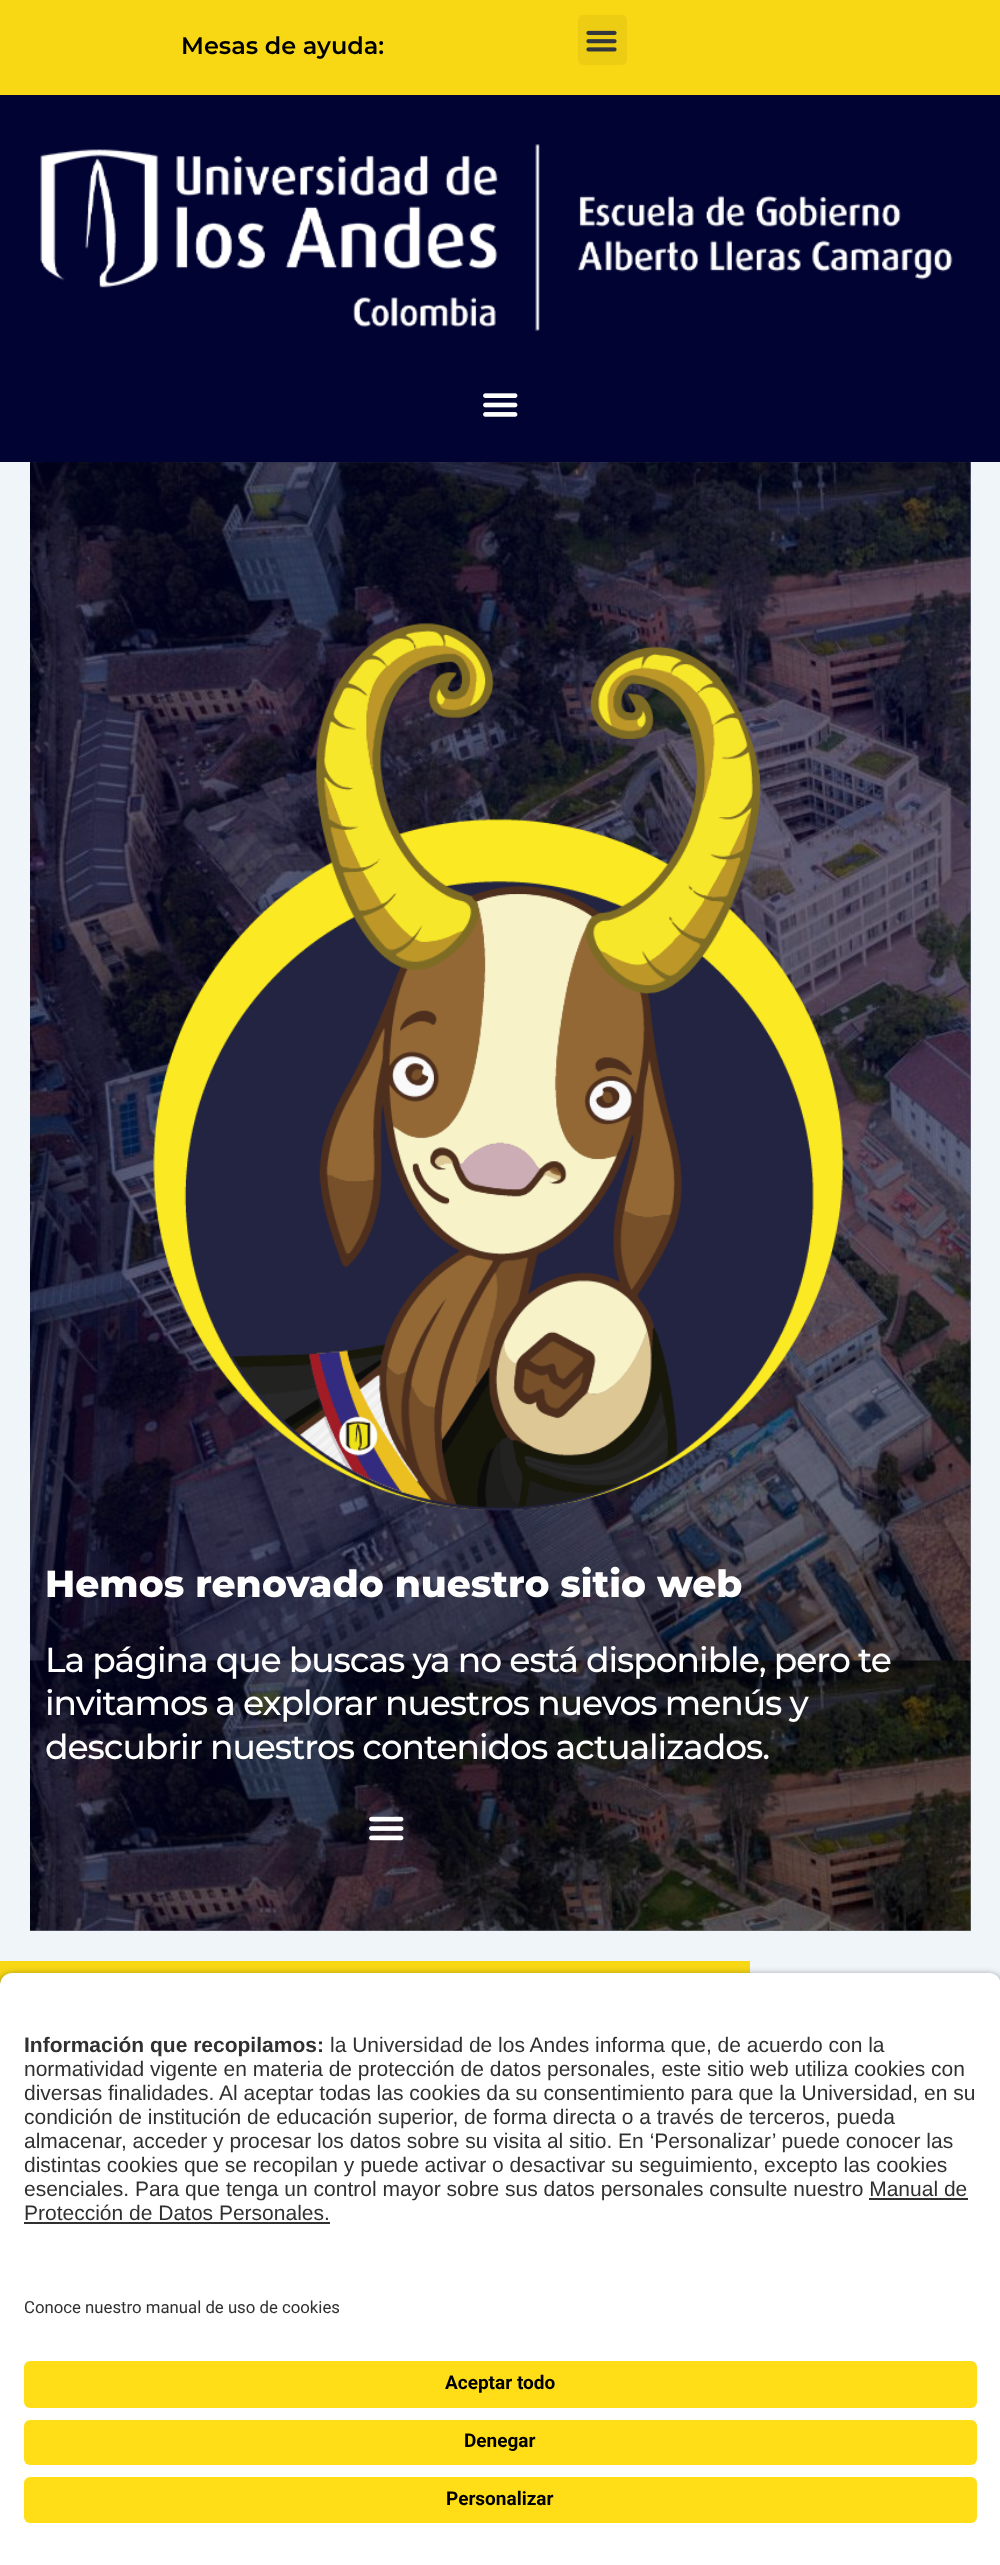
<!DOCTYPE html>
<meta charset="utf-8">
<style>body { margin: 0 } canvas { display: block }</style>
<canvas id="canvas" width="1000" height="2565"></canvas>
<script type="module">
  const canvas = document.getElementById("canvas");
  const g = canvas.getContext("2d");
  g.miterLimit = 4;
  g.fontKerning = "normal";
  function drawText(s, x, y, [font, color]) {
    g.font = font;
    g.fillStyle = color;
    g.fillText(s, x, y);
  }
  function fillBox(x, y, w, h, color) {
    g.fillStyle = color;
    g.fillRect(x, y, w, h);
  }
  function fillRounded(x, y, w, h, r, color) {
    g.fillStyle = color;
    g.beginPath();
    g.roundRect(x, y, w, h, r);
    g.fill();
  }
  async function drawPicture(src, x, y, w, h) {
    const img = new Image();
    img.src = src;
    await img.decode();
    g.drawImage(img, x, y, w, h);
  }
  let gradient;

  const s1 = ["600 24px Montserrat", "#000000"];
  const s2 = ["800 37.5px Montserrat", "#FFFFFF"];
  const s3 = ["500 34.5px Montserrat", "#FFFFFF"];
  const s4 = ["bold 21px Liberation Sans", "#303030"];
  const s5 = ["21px Liberation Sans", "#303030"];
  const s6 = ["16.75px Roboto", "#303030"];
  const s7 = ["bold 19px Roboto", "#000000"];

  fillBox(0, 0, 1000, 2565, "#F0F5FA");
  fillBox(0, 0, 1000, 95, "#F8D815");
  drawText("Mesas de ayuda:", 181, 54, s1);
  fillRounded(578, 15, 49, 50, 5, "#ECCD14");
  await drawPicture("pic1.png", 586, 30, 31, 22);
  fillBox(0, 95, 1000, 367, "#010333");
  await drawPicture("pic2.png", 40, 144, 913, 187);
  await drawPicture("pic3.png", 483, 393, 35, 24);
  await drawPicture("pic4.png", 30, 462, 941, 1469);
  gradient = g.createLinearGradient(-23, 502, 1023, 1891);
  gradient.addColorStop(0.59, "rgba(1, 3, 51, 0.5)");
  gradient.addColorStop(1, "rgba(0, 0, 0, 0.5)");
  g.fillStyle = gradient;
  g.fillRect(30, 462, 941, 1469);
  await drawPicture("pic5.png", 153, 623, 691, 889);
  drawText("Hemos renovado nuestro sitio web", 45, 1597, s2);
  g.letterSpacing = "-1.05px";
  drawText("La página que buscas ya no está disponible, pero te", 45, 1672, s3);
  drawText("invitamos a explorar nuestros nuevos menús y", 45, 1715, s3);
  drawText("descubrir nuestros contenidos actualizados.", 45, 1759, s3);
  await drawPicture("pic6.png", 369, 1816, 35, 25);
  fillBox(0, 1961, 750, 24, "#F8D815");
  g.fillStyle = "rgba(0, 0, 0, 0.8)";
  g.filter = "blur(5px)";
  g.beginPath();
  g.roundRect(0, 1977, 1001, 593, 12);
  g.fill();
  g.filter = "none";
  g.fillStyle = "#FFFFFF";
  g.beginPath();
  g.moveTo(12, 1973);
  g.lineTo(989, 1973);
  g.bezierCurveTo(995.5, 1973, 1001, 1978.5, 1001, 1985);
  g.lineTo(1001, 2274);
  g.lineTo(0, 2274);
  g.lineTo(0, 1985);
  g.bezierCurveTo(0, 1978.5, 5.5, 1973, 12, 1973);
  g.closePath();
  g.fill();
  g.letterSpacing = "0px";
  drawText("Información que recopilamos:", 24, 2052, s4);
  drawText("la Universidad de los Andes informa que, de acuerdo con la", 330, 2052, s5);
  drawText("normatividad vigente en materia de protección de datos personales, este sitio web utiliza cookies con", 24, 2076, s5);
  drawText("diversas finalidades. Al aceptar todas las cookies da su consentimiento para que la Universidad, en su", 24, 2100, s5);
  drawText("condición de institución de educación superior, de forma directa o a través de terceros, pueda", 24, 2124, s5);
  drawText("almacenar, acceder y procesar los datos sobre su visita al sitio. En ‘Personalizar’ puede conocer las", 24, 2148, s5);
  drawText("distintas cookies que se recopilan y puede activar o desactivar su seguimiento, excepto las cookies", 24, 2172, s5);
  drawText("esenciales. Para que tenga un control mayor sobre sus datos personales consulte nuestro Manual de", 24, 2196, s5);
  drawText("Protección de Datos Personales.", 24, 2220, s5);
  fillBox(869, 2198, 99, 2, "#303030");
  fillBox(24, 2222, 306, 2, "#303030");
  fillBox(0, 2274, 1000, 291, "#FFFFFF");
  drawText("Conoce nuestro manual de uso de cookies", 24, 2313, s6);
  fillRounded(24, 2361, 953, 47, 6, "#FFDE17");
  drawText("Aceptar todo", 445, 2389, s7);
  fillRounded(24, 2420, 953, 45, 6, "#FFDE17");
  drawText("Denegar", 464, 2447, s7);
  fillRounded(24, 2477, 953, 46, 6, "#FFDE17");
  drawText("Personalizar", 446, 2505, s7);
</script>
